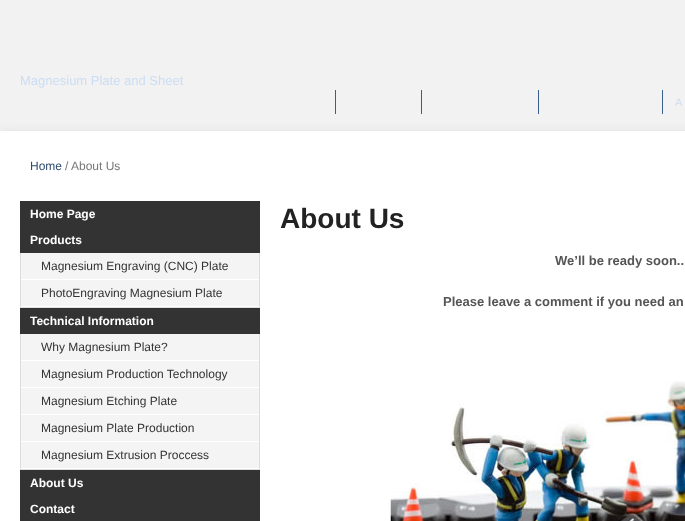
<!DOCTYPE html>
<meta charset="utf-8">
<style>body { margin: 0 } canvas { display: block }</style>
<canvas id="canvas" width="685" height="521"></canvas>
<script type="module">
  const canvas = document.getElementById("canvas");
  const g = canvas.getContext("2d");
  g.miterLimit = 4;
  g.fontKerning = "normal";
  function drawText(s, x, y, [font, color]) {
    g.font = font;
    g.fillStyle = color;
    g.fillText(s, x, y);
  }
  function fillBox(x, y, w, h, color) {
    g.fillStyle = color;
    g.fillRect(x, y, w, h);
  }
  async function drawPicture(src, x, y, w, h) {
    const img = new Image();
    img.src = src;
    await img.decode();
    g.drawImage(img, x, y, w, h);
  }

  const s1 = ["13px Liberation Sans", "#CBDDF4"];
  const s2 = ["11px Liberation Sans", "#CBDDF4"];
  const s3 = ["12px Liberation Sans", "#2F4C6C"];
  const s4 = ["12px Liberation Sans", "#777777"];
  const s5 = ["bold 12px Liberation Sans", "#FFFFFF"];
  const s6 = ["12px Liberation Sans", "#333333"];
  const s7 = ["bold 28px Liberation Sans", "#222222"];
  const s8 = ["bold 13px Liberation Sans", "#555555"];

  fillBox(0, 0, 685, 521, "#F2F2F2");
  drawText("Magnesium Plate and Sheet", 20, 85, s1);
  fillBox(335, 90, 1, 24, "#385E8A");
  fillBox(421, 90, 1, 24, "#385E8A");
  fillBox(538, 90, 1, 24, "#385E8A");
  fillBox(662, 90, 1, 24, "#385E8A");
  drawText("A", 675, 106, s2);
  g.fillStyle = "#E1E1E1";
  g.filter = "blur(5px)";
  g.beginPath();
  g.rect(0, 131, 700, 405);
  g.fill();
  g.filter = "none";
  fillBox(0, 131, 685, 390, "#FFFFFF");
  drawText("Home", 30, 170, s3);
  drawText("/", 65, 170, s4);
  drawText("About Us", 71, 170, s4);
  fillBox(20, 201, 240, 52, "#333333");
  drawText("Home Page", 30, 218, s5);
  drawText("Products", 30, 244, s5);
  fillBox(259, 253, 1, 55, "#DDDDDD");
  fillBox(20, 307, 240, 1, "#DDDDDD");
  fillBox(20, 253, 1, 55, "#DDDDDD");
  fillBox(21, 253, 238, 26, "#F4F4F4");
  drawText("Magnesium Engraving (CNC) Plate", 41, 270, s6);
  fillBox(21, 280, 238, 26, "#F4F4F4");
  drawText("PhotoEngraving Magnesium Plate", 41, 297, s6);
  fillBox(20, 308, 240, 26, "#333333");
  drawText("Technical Information", 30, 325, s5);
  fillBox(259, 334, 1, 136, "#DDDDDD");
  fillBox(20, 469, 240, 1, "#DDDDDD");
  fillBox(20, 334, 1, 136, "#DDDDDD");
  fillBox(21, 334, 238, 26, "#F4F4F4");
  drawText("Why Magnesium Plate?", 41, 351, s6);
  fillBox(21, 361, 238, 26, "#F4F4F4");
  drawText("Magnesium Production Technology", 41, 378, s6);
  fillBox(21, 388, 238, 26, "#F4F4F4");
  drawText("Magnesium Etching Plate", 41, 405, s6);
  fillBox(21, 415, 238, 26, "#F4F4F4");
  drawText("Magnesium Plate Production", 41, 432, s6);
  fillBox(21, 442, 238, 26, "#F4F4F4");
  drawText("Magnesium Extrusion Proccess", 41, 459, s6);
  fillBox(20, 470, 240, 51, "#333333");
  drawText("About Us", 30, 487, s5);
  drawText("Contact", 30, 513, s5);
  drawText("About Us", 280, 228, s7);
  drawText("We’ll be ready soon..", 555, 265, s8);
  drawText("Please leave a comment if you need an", 443, 306, s8);
  await drawPicture("pic1.png", 390, 381, 295, 140);
</script>
